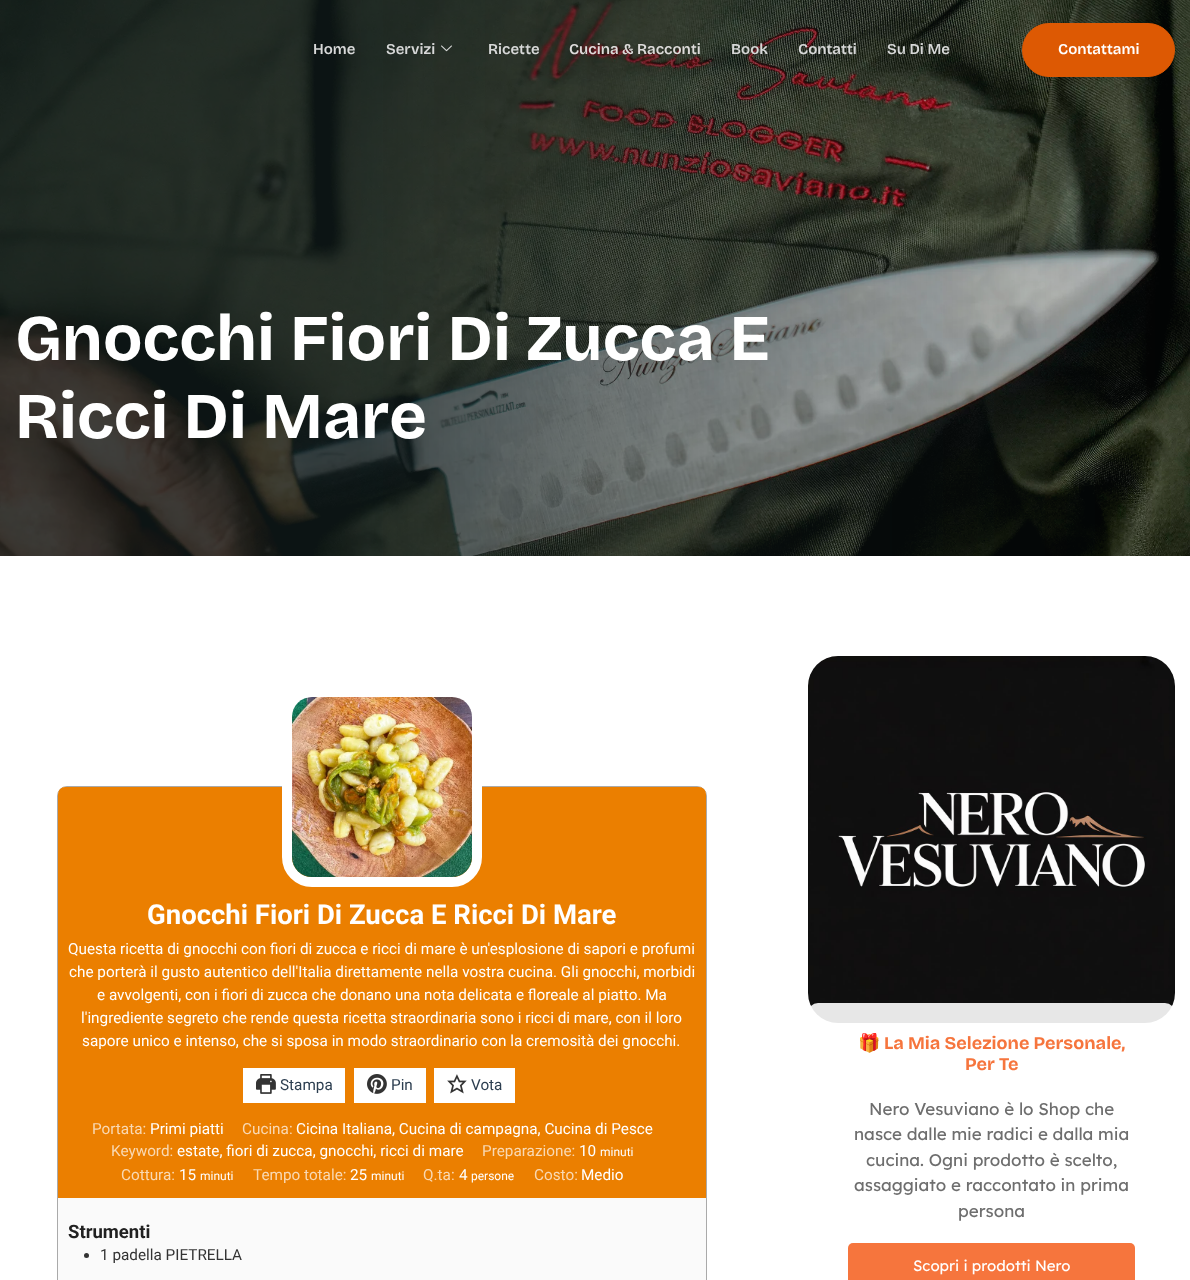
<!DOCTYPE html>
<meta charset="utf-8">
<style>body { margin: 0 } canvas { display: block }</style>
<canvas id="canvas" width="1190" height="1280"></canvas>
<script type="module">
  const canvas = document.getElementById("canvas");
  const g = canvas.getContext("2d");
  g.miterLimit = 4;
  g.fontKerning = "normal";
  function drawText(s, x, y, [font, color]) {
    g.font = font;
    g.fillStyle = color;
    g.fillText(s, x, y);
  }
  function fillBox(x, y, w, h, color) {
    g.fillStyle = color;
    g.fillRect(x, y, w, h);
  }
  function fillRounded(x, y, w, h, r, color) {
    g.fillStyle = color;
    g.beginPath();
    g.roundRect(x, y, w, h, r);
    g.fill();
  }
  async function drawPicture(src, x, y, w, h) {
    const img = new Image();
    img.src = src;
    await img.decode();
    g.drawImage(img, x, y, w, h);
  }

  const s1 = ["600 15px Bricolage Grotesque", "#D7D8D8"];
  const s2 = ["600 15px Bricolage Grotesque", "#DDDBDA"];
  const s3 = ["600 15px Bricolage Grotesque", "#FFFFFF"];
  const s4 = ["bold 65px Bricolage Grotesque", "#FFFFFF"];
  const s5 = ["bold 27.5px Roboto", "#FFFFFF"];
  const s6 = ["15.3px Roboto", "#FFFFFF"];
  const s7 = ["15.3px Roboto", "#2C3E50"];
  const s8 = ["15.3px Roboto", "#F9D9B3"];
  const s9 = ["12px Roboto", "#FFFFFF"];
  const s10 = ["bold 18.5px Roboto", "#212121"];
  const s11 = ["15.3px Roboto", "#333333"];
  const s12 = ["bold 18px Noto Color Emoji", "#F6753D"];
  const s13 = ["bold 18px Bricolage Grotesque", "#F6753D"];
  const s14 = ["17px Lexend", "#6E6E6E"];
  const s15 = ["15px Lexend", "#FFFFFF"];

  fillBox(0, 0, 1190, 1280, "#FFFFFF");
  await drawPicture("pic2.png", 0, 0, 1190, 556);
  drawText("Home", 313, 54, s1);
  drawText("Servizi", 386, 54, s1);
  await drawPicture("pic1.png", 441, 45, 11, 7);
  drawText("Ricette", 488, 54, s1);
  drawText("Cucina & Racconti", 569, 54, s2);
  drawText("Book", 731, 54, s1);
  drawText("Contatti", 798, 54, s1);
  drawText("Su Di Me", 887, 54, s1);
  g.fillStyle = "#DD5903";
  g.beginPath();
  g.roundRect(1022.5, 23.5, 152, 53, 26.5);
  g.fill();
  g.strokeStyle = "#DD5903";
  g.stroke();
  drawText("Contattami", 1058, 54, s3);
  drawText("Gnocchi Fiori Di Zucca E", 15, 360, s4);
  drawText("Ricci Di Mare", 15, 438, s4);
  g.fillStyle = "#FAFAFA";
  g.beginPath();
  g.roundRect(57.5, 786.5, 649, 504, 9.5);
  g.fill();
  g.strokeStyle = "#AAAAAA";
  g.stroke();
  g.fillStyle = "#EB7F00";
  g.beginPath();
  g.roundRect(58, 787, 648, 411, [7, 7, 0, 0]);
  g.fill();
  g.beginPath();
  g.roundRect(287, 692, 190, 190, 25);
  g.strokeStyle = "#FFFFFF";
  g.lineWidth = 10;
  g.stroke();
  await drawPicture("pic3.png", 292, 697, 180, 180);
  drawText("Gnocchi Fiori Di Zucca E Ricci Di Mare", 147, 924, s5);
  drawText("Questa ricetta di gnocchi con fiori di zucca e ricci di mare è un'esplosione di sapori e profumi", 68, 954, s6);
  drawText("che porterà il gusto autentico dell'Italia direttamente nella vostra cucina. Gli gnocchi, morbidi", 69, 977, s6);
  drawText("e avvolgenti, con i fiori di zucca che donano una nota delicata e floreale al piatto. Ma", 97, 1000, s6);
  drawText("l'ingrediente segreto che rende questa ricetta straordinaria sono i ricci di mare, con il loro", 81, 1023, s6);
  drawText("sapore unico e intenso, che si sposa in modo straordinario con la cremosità dei gnocchi.", 82, 1046, s6);
  fillBox(243, 1068, 102, 35, "#FFFFFF");
  await drawPicture("pic4.png", 256, 1074, 20, 20);
  drawText("Stampa", 280, 1090, s7);
  fillBox(354, 1068, 72, 35, "#FFFFFF");
  await drawPicture("pic5.png", 367, 1074, 20, 20);
  drawText("Pin", 391, 1090, s7);
  fillBox(434, 1068, 81, 35, "#FFFFFF");
  await drawPicture("pic6.png", 447, 1074, 20, 20);
  drawText("Vota", 471, 1090, s7);
  drawText("Portata:", 92, 1134, s8);
  drawText("Primi piatti", 150, 1134, s6);
  drawText("Cucina:", 242, 1134, s8);
  drawText("Cicina Italiana, Cucina di campagna, Cucina di Pesce", 296, 1134, s6);
  drawText("Keyword:", 111, 1156, s8);
  drawText("estate, fiori di zucca, gnocchi, ricci di mare", 177, 1156, s6);
  drawText("Preparazione:", 482, 1156, s8);
  drawText("10", 579, 1156, s6);
  drawText("minuti", 600, 1156, s9);
  drawText("Cottura:", 121, 1180, s8);
  drawText("15", 179, 1180, s6);
  drawText("minuti", 200, 1180, s9);
  drawText("Tempo totale:", 253, 1180, s8);
  drawText("25", 350, 1180, s6);
  drawText("minuti", 371, 1180, s9);
  drawText("Q.ta:", 423, 1180, s8);
  drawText("4", 459, 1180, s6);
  drawText("persone", 471, 1180, s9);
  drawText("Costo:", 534, 1180, s8);
  drawText("Medio", 581, 1180, s6);
  drawText("Strumenti", 68, 1238, s10);
  g.fillStyle = "#333333";
  g.beginPath();
  g.arc(86.5, 1255.5, 2.5, 0, Math.PI * 2);
  g.fill();
  drawText("1 padella PIETRELLA", 100, 1260, s11);
  await drawPicture("pic7.png", 808, 656, 367, 367);
  fillRounded(808, 1003, 367, 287, 10, "rgba(255, 255, 255, 0.9)");
  drawText("🎁", 858, 1049, s12);
  drawText("La Mia Selezione Personale,", 884, 1049, s13);
  drawText("Per Te", 965, 1070, s13);
  drawText("Nero Vesuviano è lo Shop che", 869, 1115, s14);
  drawText("nasce dalle mie radici e dalla mia", 854, 1140, s14);
  drawText("cucina. Ogni prodotto è scelto,", 866, 1166, s14);
  drawText("assaggiato e raccontato in prima", 854, 1191, s14);
  drawText("persona", 958, 1217, s14);
  fillRounded(848, 1243, 287, 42, 5, "#F6753D");
  drawText("Scopri i prodotti Nero", 913, 1271, s15);
</script>
